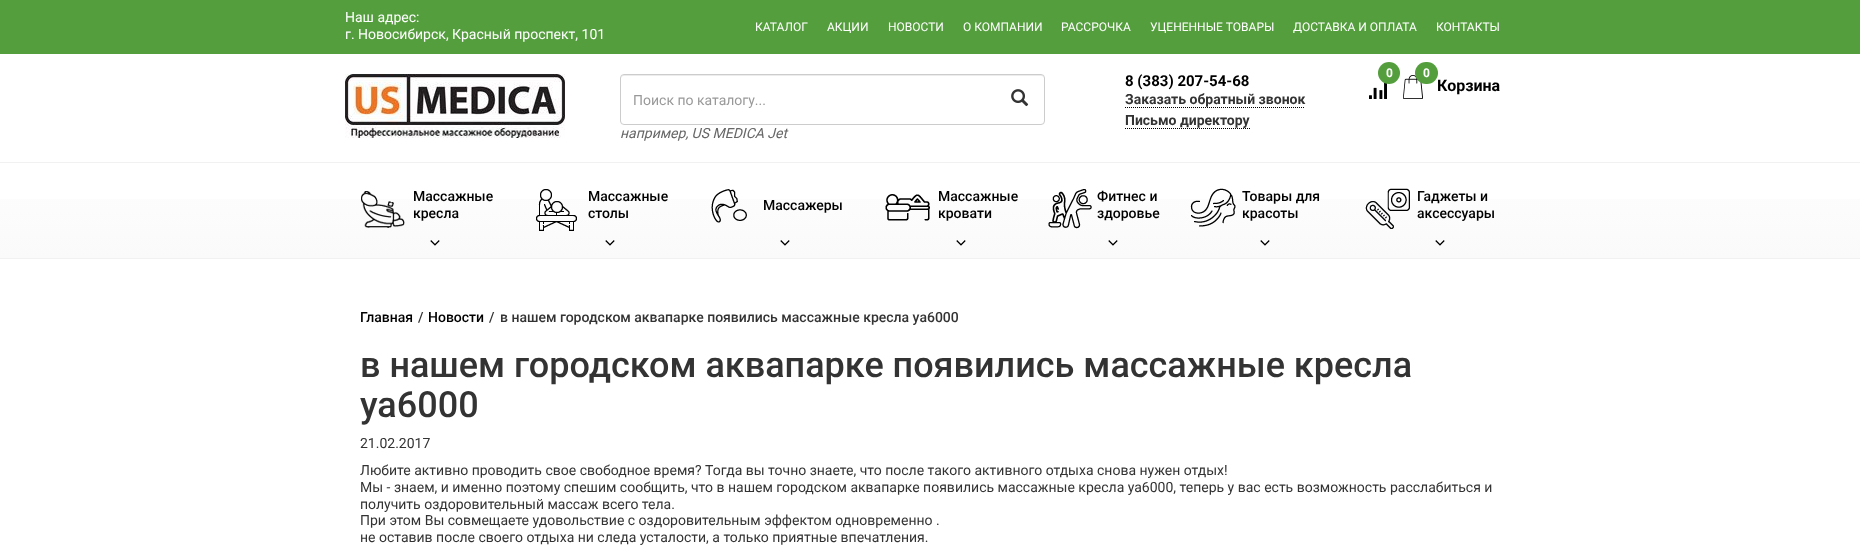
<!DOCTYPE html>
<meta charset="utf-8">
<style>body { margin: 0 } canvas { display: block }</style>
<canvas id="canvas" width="1860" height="552"></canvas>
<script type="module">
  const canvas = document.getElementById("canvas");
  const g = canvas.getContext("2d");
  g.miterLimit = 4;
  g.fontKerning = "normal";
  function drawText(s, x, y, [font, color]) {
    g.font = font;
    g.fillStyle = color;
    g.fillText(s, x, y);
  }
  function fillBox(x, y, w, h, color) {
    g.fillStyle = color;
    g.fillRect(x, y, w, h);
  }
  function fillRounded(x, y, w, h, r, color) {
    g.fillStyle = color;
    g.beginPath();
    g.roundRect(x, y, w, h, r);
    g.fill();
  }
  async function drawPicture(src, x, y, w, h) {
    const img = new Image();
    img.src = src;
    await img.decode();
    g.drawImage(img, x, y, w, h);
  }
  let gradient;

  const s1 = ["14px Roboto", "#FFFFFF"];
  const s2 = ["12px Roboto", "#FFFFFF"];
  const s3 = ["14px Roboto", "#999999"];
  const s4 = ["italic 14px Roboto", "#676767"];
  const s5 = ["bold 15px Roboto", "#000000"];
  const s6 = ["bold 14px Roboto", "#333333"];
  const s7 = ["bold 12px Roboto", "#FFFFFF"];
  const s8 = ["bold 16px Roboto", "#000000"];
  const s9 = ["500 14px Roboto", "#000000"];
  const s10 = ["500 14px Roboto", "#333333"];
  const s11 = ["500 36px Roboto", "#333333"];
  const s12 = ["14px Roboto", "#333333"];

  fillBox(0, 0, 1860, 552, "#FFFFFF");
  fillBox(0, 0, 1860, 54, "#559E3E");
  drawText("Наш адрес:", 345, 22, s1);
  drawText("г. Новосибирск, Красный проспект, 101", 345, 39, s1);
  drawText("КАТАЛОГ", 755, 31, s2);
  drawText("АКЦИИ", 827, 31, s2);
  drawText("НОВОСТИ", 888, 31, s2);
  drawText("О КОМПАНИИ", 963, 31, s2);
  drawText("РАССРОЧКА", 1061, 31, s2);
  drawText("УЦЕНЕННЫЕ ТОВАРЫ", 1150, 31, s2);
  drawText("ДОСТАВКА И ОПЛАТА", 1293, 31, s2);
  drawText("КОНТАКТЫ", 1436, 31, s2);
  await drawPicture("pic1.png", 345, 74, 220, 64);
  g.fillStyle = "#ECECEC";
  g.beginPath();
  g.moveTo(624, 76);
  g.lineTo(1041, 76);
  g.bezierCurveTo(1043, 76, 1044, 77, 1044, 79);
  g.bezierCurveTo(1044, 77, 1043, 75, 1041, 75);
  g.lineTo(624, 75);
  g.bezierCurveTo(622, 75, 621, 77, 621, 79);
  g.bezierCurveTo(621, 77, 622, 76, 624, 76);
  g.closePath();
  g.fill();
  g.beginPath();
  g.roundRect(620.5, 74.5, 424, 50, 3.5);
  g.strokeStyle = "#CCCCCC";
  g.stroke();
  drawText("Поиск по каталогу...", 633, 105, s3);
  await drawPicture("pic2.png", 1011, 89, 18, 18);
  drawText("например, US MEDICA Jet", 620, 138, s4);
  drawText("8 (383) 207-54-68", 1125, 86, s5);
  drawText("Заказать обратный звонок", 1125, 104, s6);
  g.beginPath();
  g.moveTo(1125, 107.5);
  g.lineTo(1305, 107.5);
  g.strokeStyle = "#000000";
  g.setLineDash([1, 1]);
  g.stroke();
  drawText("Письмо директору", 1125, 125, s6);
  g.beginPath();
  g.moveTo(1125, 128.5);
  g.lineTo(1250, 128.5);
  g.stroke();
  await drawPicture("pic3.png", 1369, 82, 18, 17);
  g.fillStyle = "#559E3E";
  g.beginPath();
  g.arc(1389, 73, 11, 0, Math.PI * 2);
  g.fill();
  drawText("0", 1386, 77, s7);
  await drawPicture("pic4.png", 1403, 75, 20, 24);
  drawText("Корзина", 1437, 91, s8);
  fillRounded(1415, 62, 23, 22, 11, "#559E3E");
  drawText("0", 1423, 77, s7);
  gradient = g.createLinearGradient(930, 163, 930, 258);
  gradient.addColorStop(0, "#FEFEFE");
  gradient.addColorStop(1, "#FAFAFB");
  g.fillStyle = gradient;
  g.fillRect(0, 199, 1860, 59);
  fillBox(0, 162, 1860, 1, "#F1F1F1");
  fillBox(0, 258, 1860, 1, "#F1F1F1");
  await drawPicture("pic5.png", 361, 191, 44, 37);
  drawText("Массажные", 413, 201, s9);
  drawText("кресла", 413, 218, s9);
  await drawPicture("pic6.png", 430, 240, 10, 6);
  await drawPicture("pic7.png", 536, 189, 41, 42);
  drawText("Массажные", 588, 201, s9);
  drawText("столы", 588, 218, s9);
  await drawPicture("pic6.png", 605, 240, 10, 6);
  await drawPicture("pic8.png", 711, 189, 36, 34);
  drawText("Массажеры", 763, 210, s9);
  await drawPicture("pic6.png", 780, 240, 10, 6);
  await drawPicture("pic9.png", 885, 194, 45, 27);
  drawText("Массажные", 938, 201, s9);
  drawText("кровати", 938, 218, s9);
  await drawPicture("pic6.png", 956, 240, 10, 6);
  await drawPicture("pic10.png", 1048, 189, 44, 40);
  drawText("Фитнес и", 1097, 201, s9);
  drawText("здоровье", 1097, 218, s9);
  await drawPicture("pic6.png", 1108, 240, 10, 6);
  await drawPicture("pic11.png", 1190, 188, 46, 39);
  drawText("Товары для", 1242, 201, s9);
  drawText("красоты", 1242, 218, s9);
  await drawPicture("pic6.png", 1260, 240, 10, 6);
  await drawPicture("pic12.png", 1365, 188, 45, 41);
  drawText("Гаджеты и", 1417, 201, s9);
  drawText("аксессуары", 1417, 218, s9);
  await drawPicture("pic6.png", 1435, 240, 10, 6);
  drawText("Главная", 360, 322, s9);
  drawText("/", 418, 322, s10);
  drawText("Новости", 428, 322, s9);
  drawText("/", 489, 322, s10);
  drawText("в нашем городском аквапарке появились массажные кресла ya6000", 500, 322, s10);
  drawText("в нашем городском аквапарке появились массажные кресла", 360, 377, s11);
  drawText("ya6000", 360, 417, s11);
  drawText("21.02.2017", 360, 448, s12);
  drawText("Любите активно проводить свое свободное время? Тогда вы точно знаете, что после такого активного отдыха снова нужен отдых!", 360, 475, s12);
  drawText("Мы - знаем, и именно поэтому спешим сообщить, что в нашем городском аквапарке появились массажные кресла ya6000, теперь у вас есть возможность расслабиться и", 360, 492, s12);
  drawText("получить оздоровительный массаж всего тела.", 360, 509, s12);
  drawText("При этом Вы совмещаете удовольствие с оздоровительным эффектом одновременно .", 360, 525, s12);
  drawText("не оставив после своего отдыха ни следа усталости, а только приятные впечатления.", 360, 542, s12);
</script>
